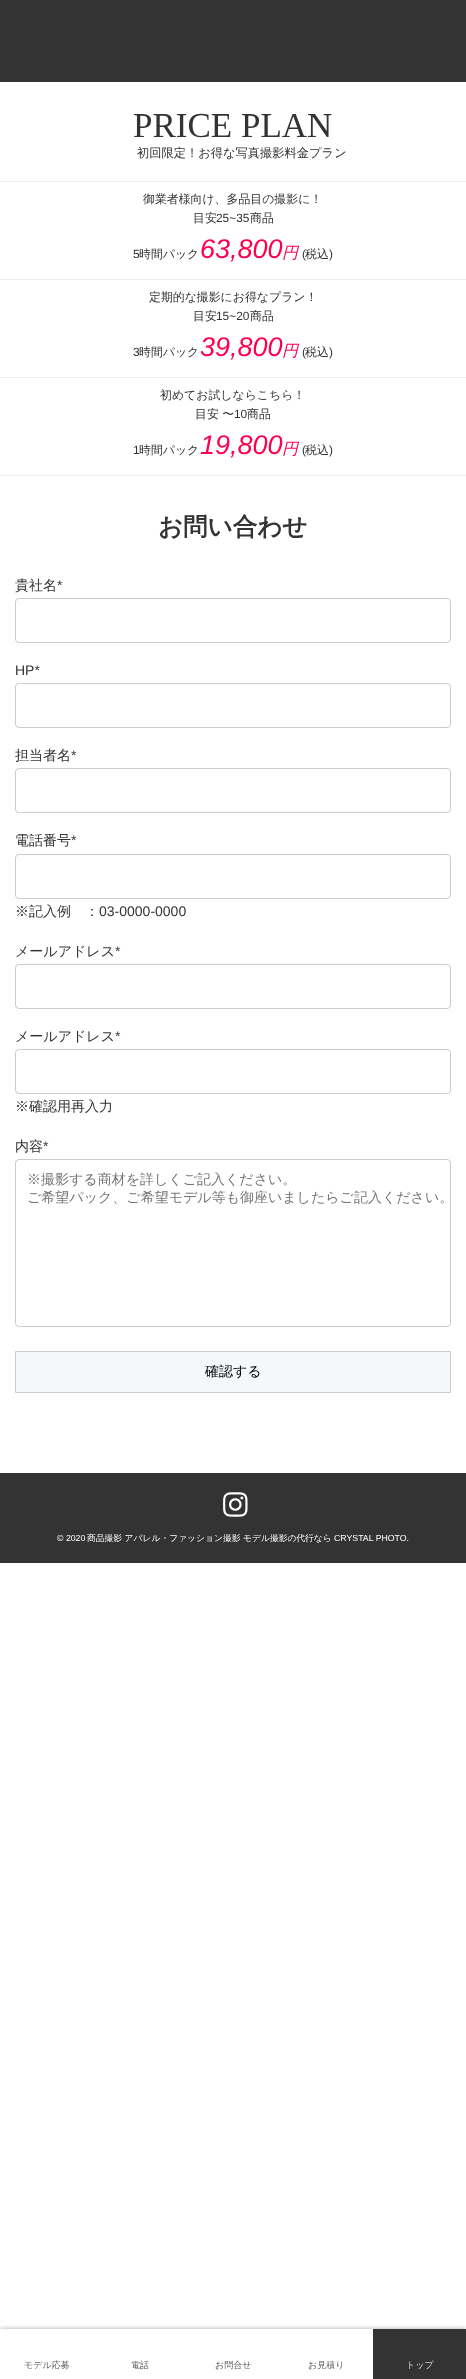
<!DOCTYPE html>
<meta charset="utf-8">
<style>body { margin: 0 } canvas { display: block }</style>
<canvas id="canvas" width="466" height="2379"></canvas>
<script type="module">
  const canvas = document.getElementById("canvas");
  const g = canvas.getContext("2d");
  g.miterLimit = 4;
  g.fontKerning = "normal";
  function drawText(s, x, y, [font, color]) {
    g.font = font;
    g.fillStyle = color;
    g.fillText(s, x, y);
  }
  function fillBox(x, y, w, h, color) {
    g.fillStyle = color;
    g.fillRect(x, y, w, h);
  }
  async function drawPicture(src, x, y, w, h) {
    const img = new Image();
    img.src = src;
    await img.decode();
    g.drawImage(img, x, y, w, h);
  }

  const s1 = ["35px Liberation Serif", "#333333"];
  const s2 = ["500 12.25px WenQuanYi Zen Hei", "#333333"];
  const s3 = ["500 11.9px WenQuanYi Zen Hei", "#333333"];
  const s4 = ["11.9px Liberation Sans", "#333333"];
  const s5 = ["italic 27px Liberation Sans", "#FF0050"];
  const s6 = ["italic 500 16px WenQuanYi Zen Hei", "#FF0050"];
  const s7 = ["bold 24.5px WenQuanYi Zen Hei", "#333333"];
  const s8 = ["500 14px WenQuanYi Zen Hei", "#333333"];
  const s9 = ["14px Liberation Sans", "#333333"];
  const s10 = ["500 14px WenQuanYi Zen Hei", "#757575"];
  const s11 = ["500 14px WenQuanYi Zen Hei", "#000000"];
  const s12 = ["8.75px Liberation Sans", "#FFFFFF"];
  const s13 = ["500 8.75px WenQuanYi Zen Hei", "#FFFFFF"];
  const s14 = ["500 9px WenQuanYi Zen Hei", "#5C5C5C"];
  const s15 = ["500 9px WenQuanYi Zen Hei", "#D6D6D6"];

  fillBox(0, 0, 466, 2379, "#FFFFFF");
  fillBox(0, 0, 466, 82, "#333333");
  drawText("PRICE PLAN", 133, 137, s1);
  drawText("初回限定！お得な写真撮影料金プラン", 137, 157, s2);
  fillBox(0, 181, 466, 1, "#EEEEEE");
  drawText("御業者様向け、多品目の撮影に！", 143, 203, s3);
  drawText("目安", 193, 222, s3);
  drawText("25~35", 216, 222, s4);
  drawText("商品", 250, 222, s3);
  drawText("5", 133, 258, s4);
  drawText("時間パック", 139, 258, s3);
  drawText("63,800", 200, 258, s5);
  drawText("円", 282, 258, s6);
  drawText("(", 302, 258, s4);
  drawText("税込", 305, 258, s3);
  drawText(")", 329, 258, s4);
  fillBox(0, 279, 466, 1, "#EEEEEE");
  drawText("定期的な撮影にお得なプラン！", 149, 301, s3);
  drawText("目安", 193, 320, s3);
  drawText("15~20", 216, 320, s4);
  drawText("商品", 250, 320, s3);
  drawText("3", 133, 356, s4);
  drawText("時間パック", 139, 356, s3);
  drawText("39,800", 200, 356, s5);
  drawText("円", 282, 356, s6);
  drawText("(", 302, 356, s4);
  drawText("税込", 305, 356, s3);
  drawText(")", 329, 356, s4);
  fillBox(0, 377, 466, 1, "#EEEEEE");
  fillBox(0, 475, 466, 1, "#EEEEEE");
  drawText("初めてお試しならこちら！", 160, 399, s3);
  drawText("目安 〜", 195, 418, s3);
  drawText("10", 234, 418, s4);
  drawText("商品", 247, 418, s3);
  drawText("1", 133, 454, s4);
  drawText("時間パック", 139, 454, s3);
  drawText("19,800", 200, 454, s5);
  drawText("円", 282, 454, s6);
  drawText("(", 302, 454, s4);
  drawText("税込", 305, 454, s3);
  drawText(")", 329, 454, s4);
  drawText("お問い合わせ", 158, 535, s7);
  drawText("貴社名", 15, 590, s8);
  drawText("*", 57, 590, s9);
  g.beginPath();
  g.roundRect(15.5, 598.5, 435, 44, 3.5);
  g.strokeStyle = "#CCCCCC";
  g.stroke();
  drawText("HP*", 15, 675, s9);
  g.beginPath();
  g.roundRect(15.5, 683.5, 435, 44, 3.5);
  g.stroke();
  drawText("担当者名", 15, 760, s8);
  drawText("*", 71, 760, s9);
  g.beginPath();
  g.roundRect(15.5, 768.5, 435, 44, 3.5);
  g.stroke();
  drawText("電話番号", 15, 845, s8);
  drawText("*", 71, 845, s9);
  g.beginPath();
  g.roundRect(15.5, 854.5, 435, 44, 3.5);
  g.stroke();
  drawText("※記入例　：", 15, 916, s8);
  drawText("03-0000-0000", 99, 916, s9);
  drawText("メールアドレス", 15, 956, s8);
  drawText("*", 115, 956, s9);
  g.beginPath();
  g.roundRect(15.5, 964.5, 435, 44, 3.5);
  g.stroke();
  drawText("メールアドレス", 15, 1041, s8);
  drawText("*", 115, 1041, s9);
  g.beginPath();
  g.roundRect(15.5, 1049.5, 435, 44, 3.5);
  g.stroke();
  drawText("※確認用再入力", 15, 1111, s8);
  drawText("内容", 15, 1151, s8);
  drawText("*", 43, 1151, s9);
  g.beginPath();
  g.roundRect(15.5, 1159.5, 435, 167, 3.5);
  g.stroke();
  drawText("※撮影する商材を詳しくご記入ください。", 27, 1184, s10);
  drawText("ご希望パック、ご希望モデル等も御座いましたらご記入ください。", 27, 1202, s10);
  g.fillStyle = "#F5F8FA";
  g.beginPath();
  g.rect(15.5, 1351.5, 435, 41);
  g.fill();
  g.stroke();
  drawText("確認する", 205, 1376, s11);
  fillBox(0, 1473, 466, 90, "#333333");
  await drawPicture("pic1.png", 223, 1492, 25, 25);
  drawText("© 2020", 57, 1541, s12);
  drawText("商品撮影 アパレル・ファッション撮影 モデル撮影の代行なら", 87, 1541, s13);
  drawText("CRYSTAL PHOTO.", 334, 1541, s12);
  g.save();
  g.beginPath();
  g.rect(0, 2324, 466, 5);
  g.clip();
  g.fillStyle = "#A9A9A9";
  g.filter = "blur(2.5px)";
  g.beginPath();
  g.rect(0, 2329, 466, 50);
  g.fill();
  g.filter = "none";
  g.restore();
  drawText("モデル応募", 24, 2368, s14);
  drawText("電話", 131, 2368, s14);
  drawText("お問合せ", 215, 2368, s14);
  drawText("お見積り", 308, 2368, s14);
  fillBox(373, 2329, 93, 50, "#333333");
  drawText("トップ", 406, 2368, s15);
</script>
